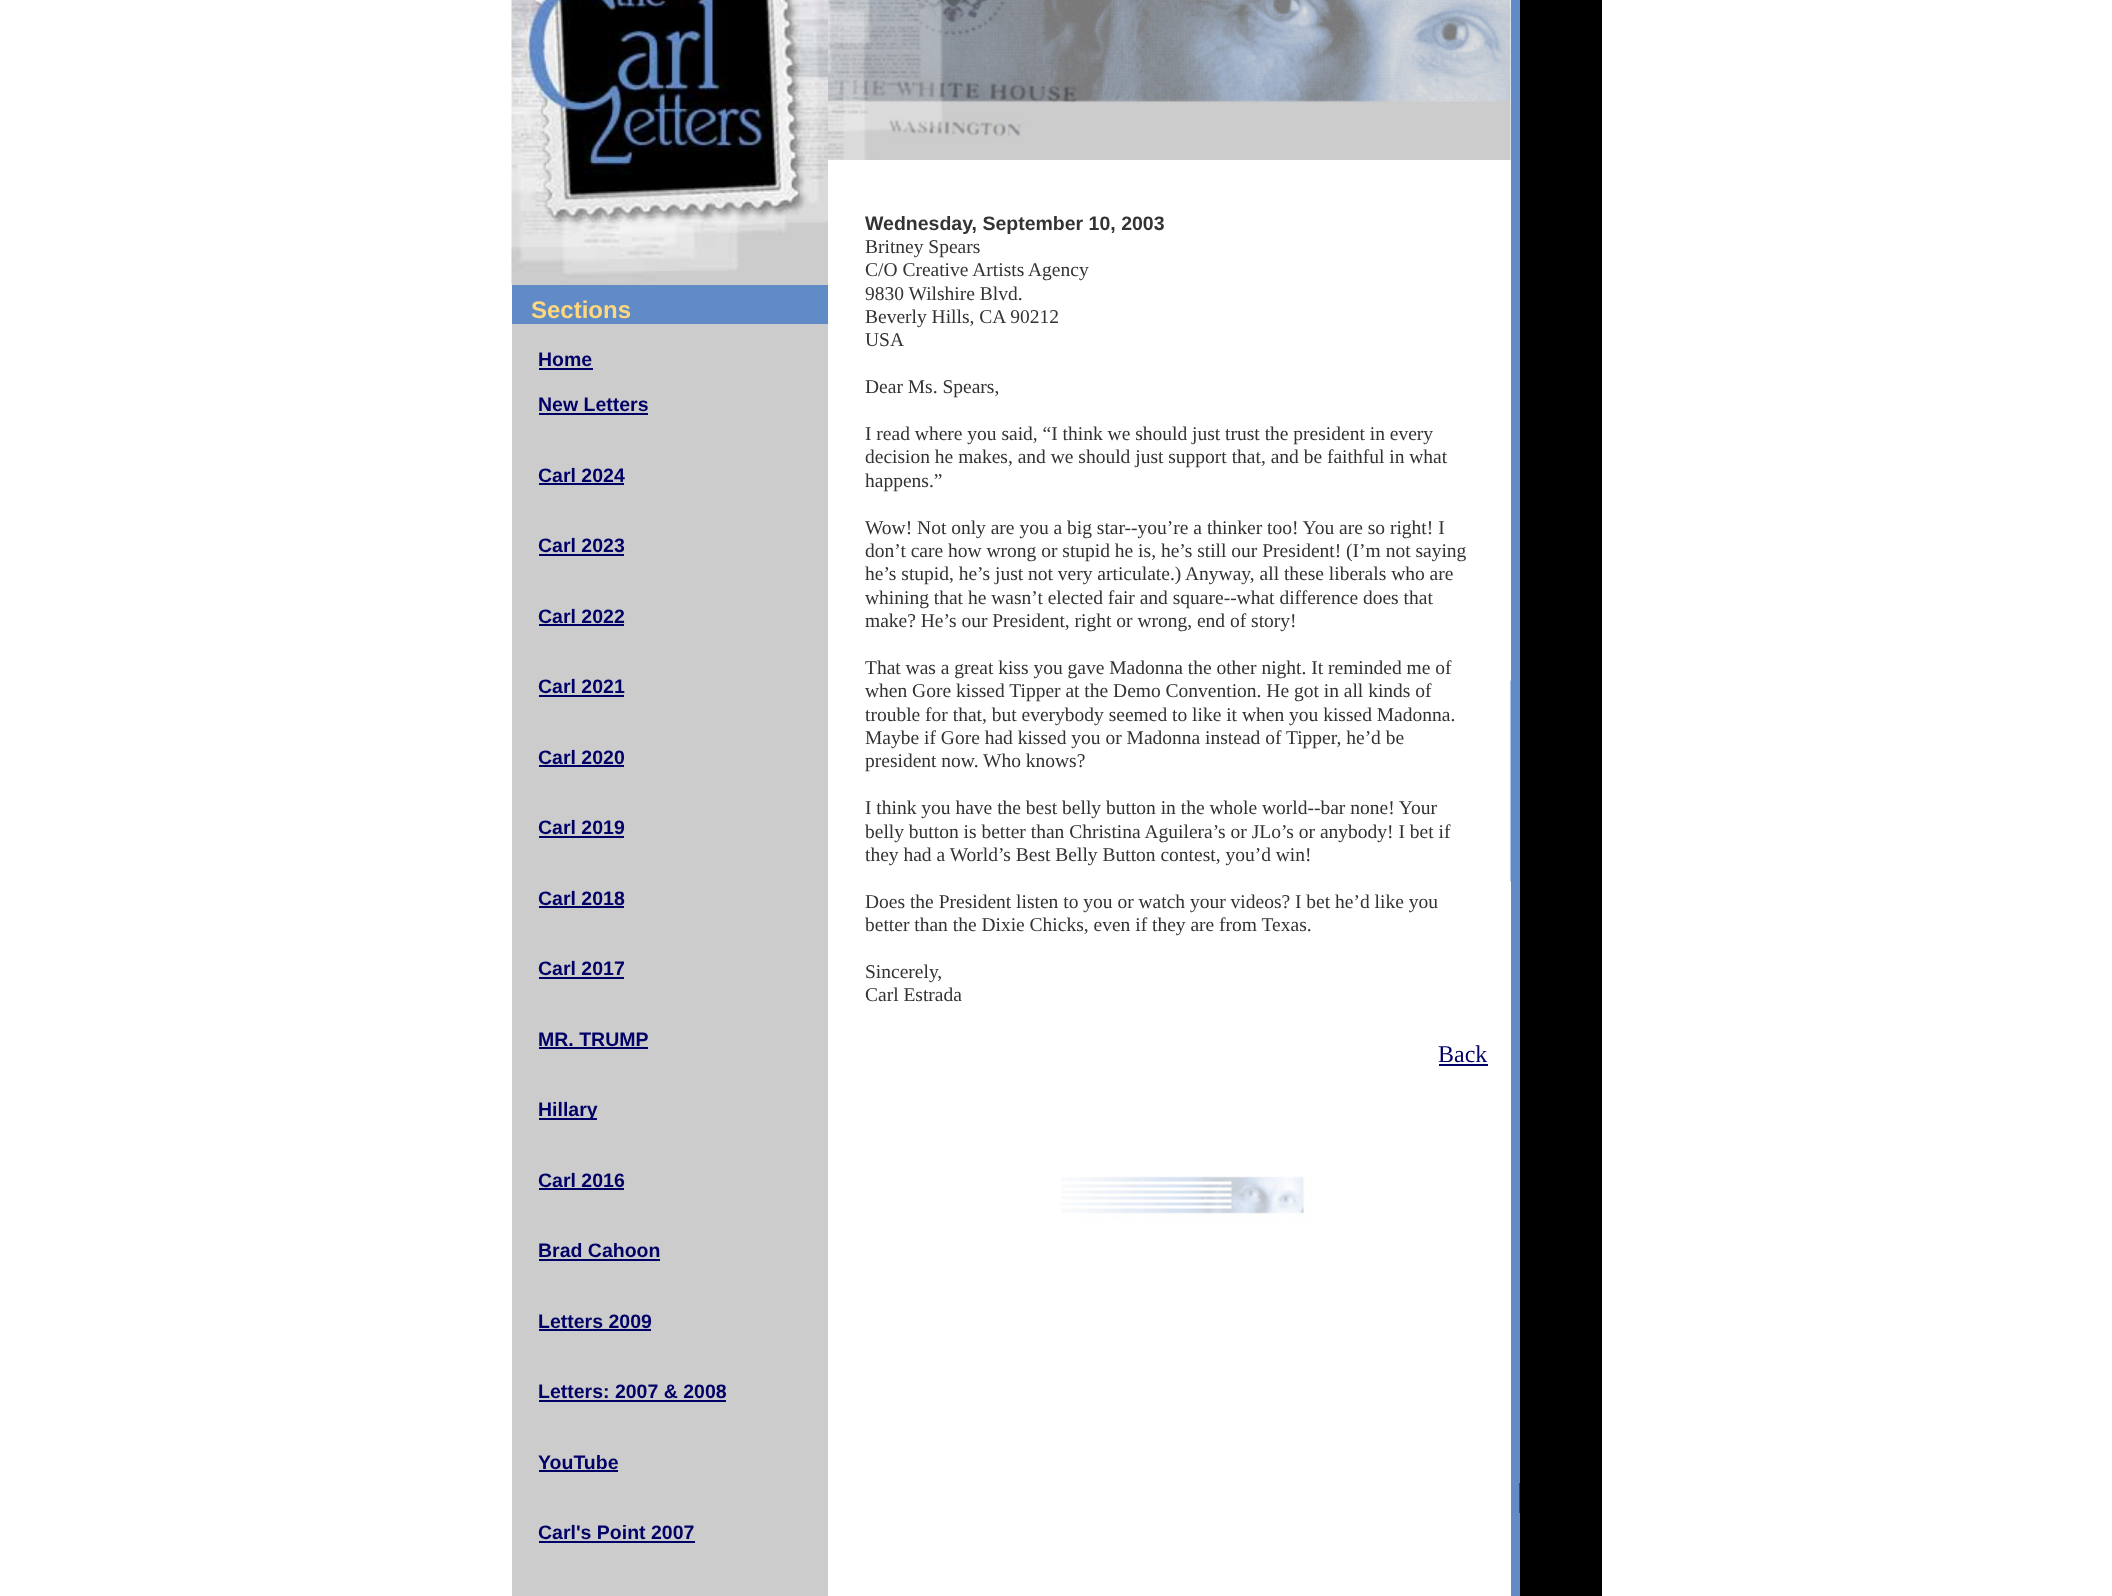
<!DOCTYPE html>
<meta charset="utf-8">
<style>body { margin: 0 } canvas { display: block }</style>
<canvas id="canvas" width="2112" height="1596"></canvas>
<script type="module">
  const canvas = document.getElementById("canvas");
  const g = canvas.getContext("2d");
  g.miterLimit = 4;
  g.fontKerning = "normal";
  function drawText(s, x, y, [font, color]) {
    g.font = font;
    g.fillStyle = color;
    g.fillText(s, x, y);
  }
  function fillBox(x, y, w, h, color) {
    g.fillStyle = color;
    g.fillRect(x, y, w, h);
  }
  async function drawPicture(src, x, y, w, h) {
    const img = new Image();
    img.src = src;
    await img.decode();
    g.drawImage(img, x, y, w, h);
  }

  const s1 = ["bold 24px Liberation Sans", "#FFD87D"];
  const s2 = ["bold 19.5px Liberation Sans", "#000066"];
  const s3 = ["bold 19.5px Liberation Sans", "#333333"];
  const s4 = ["19.5px Liberation Serif", "#333333"];
  const s5 = ["24px Liberation Serif", "#000066"];

  fillBox(0, 0, 2112, 1596, "#FFFFFF");
  fillBox(512, 284, 316, 1312, "#CCCCCC");
  await drawPicture("pic1.png", 511, 0, 317, 285);
  fillBox(512, 285, 316, 39, "#608BC7");
  drawText("Sections", 531, 318, s1);
  drawText("Home", 538, 366, s2);
  fillBox(539, 368, 54, 2, "#000066");
  drawText("New Letters", 538, 411, s2);
  fillBox(539, 413, 109, 2, "#000066");
  drawText("Carl 2024", 538, 482, s2);
  fillBox(539, 483, 85, 2, "#000066");
  drawText("Carl 2023", 538, 552, s2);
  fillBox(539, 554, 85, 2, "#000066");
  drawText("Carl 2022", 538, 623, s2);
  fillBox(539, 624, 85, 2, "#000066");
  drawText("Carl 2021", 538, 693, s2);
  fillBox(539, 695, 85, 2, "#000066");
  drawText("Carl 2020", 538, 764, s2);
  fillBox(539, 765, 85, 2, "#000066");
  drawText("Carl 2019", 538, 834, s2);
  fillBox(539, 836, 85, 2, "#000066");
  drawText("Carl 2018", 538, 905, s2);
  fillBox(539, 906, 85, 2, "#000066");
  drawText("Carl 2017", 538, 975, s2);
  fillBox(539, 977, 85, 2, "#000066");
  drawText("MR. TRUMP", 538, 1046, s2);
  fillBox(539, 1047, 109, 2, "#000066");
  fillBox(539, 1118, 58, 2, "#000066");
  drawText("Hillary", 538, 1116, s2);
  drawText("Carl 2016", 538, 1187, s2);
  fillBox(539, 1188, 85, 2, "#000066");
  drawText("Brad Cahoon", 538, 1257, s2);
  fillBox(539, 1259, 121, 2, "#000066");
  drawText("Letters 2009", 538, 1328, s2);
  fillBox(539, 1329, 112, 2, "#000066");
  drawText("Letters: 2007 & 2008", 538, 1398, s2);
  fillBox(539, 1400, 187, 2, "#000066");
  drawText("YouTube", 538, 1469, s2);
  fillBox(539, 1470, 79, 2, "#000066");
  drawText("Carl's Point 2007", 538, 1539, s2);
  fillBox(539, 1541, 156, 2, "#000066");
  await drawPicture("pic2.png", 828, 0, 683, 160);
  drawText("Wednesday, September 10, 2003", 865, 230, s3);
  drawText("Britney Spears", 865, 253, s4);
  drawText("C/O Creative Artists Agency", 865, 276, s4);
  drawText("9830 Wilshire Blvd.", 865, 300, s4);
  drawText("Beverly Hills, CA 90212", 865, 323, s4);
  drawText("USA", 865, 346, s4);
  drawText("Dear Ms. Spears,", 865, 393, s4);
  drawText("I read where you said, “I think we should just trust the president in every", 865, 440, s4);
  drawText("decision he makes, and we should just support that, and be faithful in what", 865, 463, s4);
  drawText("happens.”", 865, 487, s4);
  drawText("Wow! Not only are you a big star--you’re a thinker too! You are so right! I", 865, 534, s4);
  drawText("don’t care how wrong or stupid he is, he’s still our President! (I’m not saying", 865, 557, s4);
  drawText("he’s stupid, he’s just not very articulate.)", 865, 580, s4);
  drawText("Anyway, all these liberals who are", 1185, 580, s4);
  drawText("whining that he wasn’t elected fair and square--what difference does that", 865, 604, s4);
  drawText("make? He’s our President, right or wrong, end of story!", 865, 627, s4);
  drawText("That was a great kiss you gave Madonna the other night. It reminded me of", 865, 674, s4);
  drawText("when Gore kissed Tipper at the Demo Convention. He got in all kinds of", 865, 697, s4);
  drawText("trouble for that, but everybody seemed to like it when you kissed Madonna.", 865, 721, s4);
  drawText("Maybe if Gore had kissed you or Madonna instead of Tipper, he’d be", 865, 744, s4);
  drawText("president now.", 865, 767, s4);
  drawText("Who knows?", 983, 767, s4);
  drawText("I think you have the best belly button in the whole world--bar none! Your", 865, 814, s4);
  drawText("belly button is better than Christina Aguilera’s or JLo’s or anybody! I bet if", 865, 838, s4);
  drawText("they had a World’s Best Belly Button contest, you’d win!", 865, 861, s4);
  drawText("Does the President listen to you or watch your videos? I bet he’d like you", 865, 908, s4);
  drawText("better than the Dixie Chicks, even if they are from Texas.", 865, 931, s4);
  drawText("Sincerely,", 865, 978, s4);
  drawText("Carl Estrada", 865, 1001, s4);
  drawText("Back", 1438, 1062, s5);
  fillBox(1439, 1064, 49, 2, "#000066");
  await drawPicture("pic3.png", 1061, 1176, 251, 46);
  fillBox(1511, 0, 9, 1596, "#608BC7");
  await drawPicture("pic4.png", 1510, 680, 1, 202);
  fillBox(1520, 0, 82, 1596, "#000000");
  fillBox(1519, 1483, 1, 30, "#304664");
</script>
